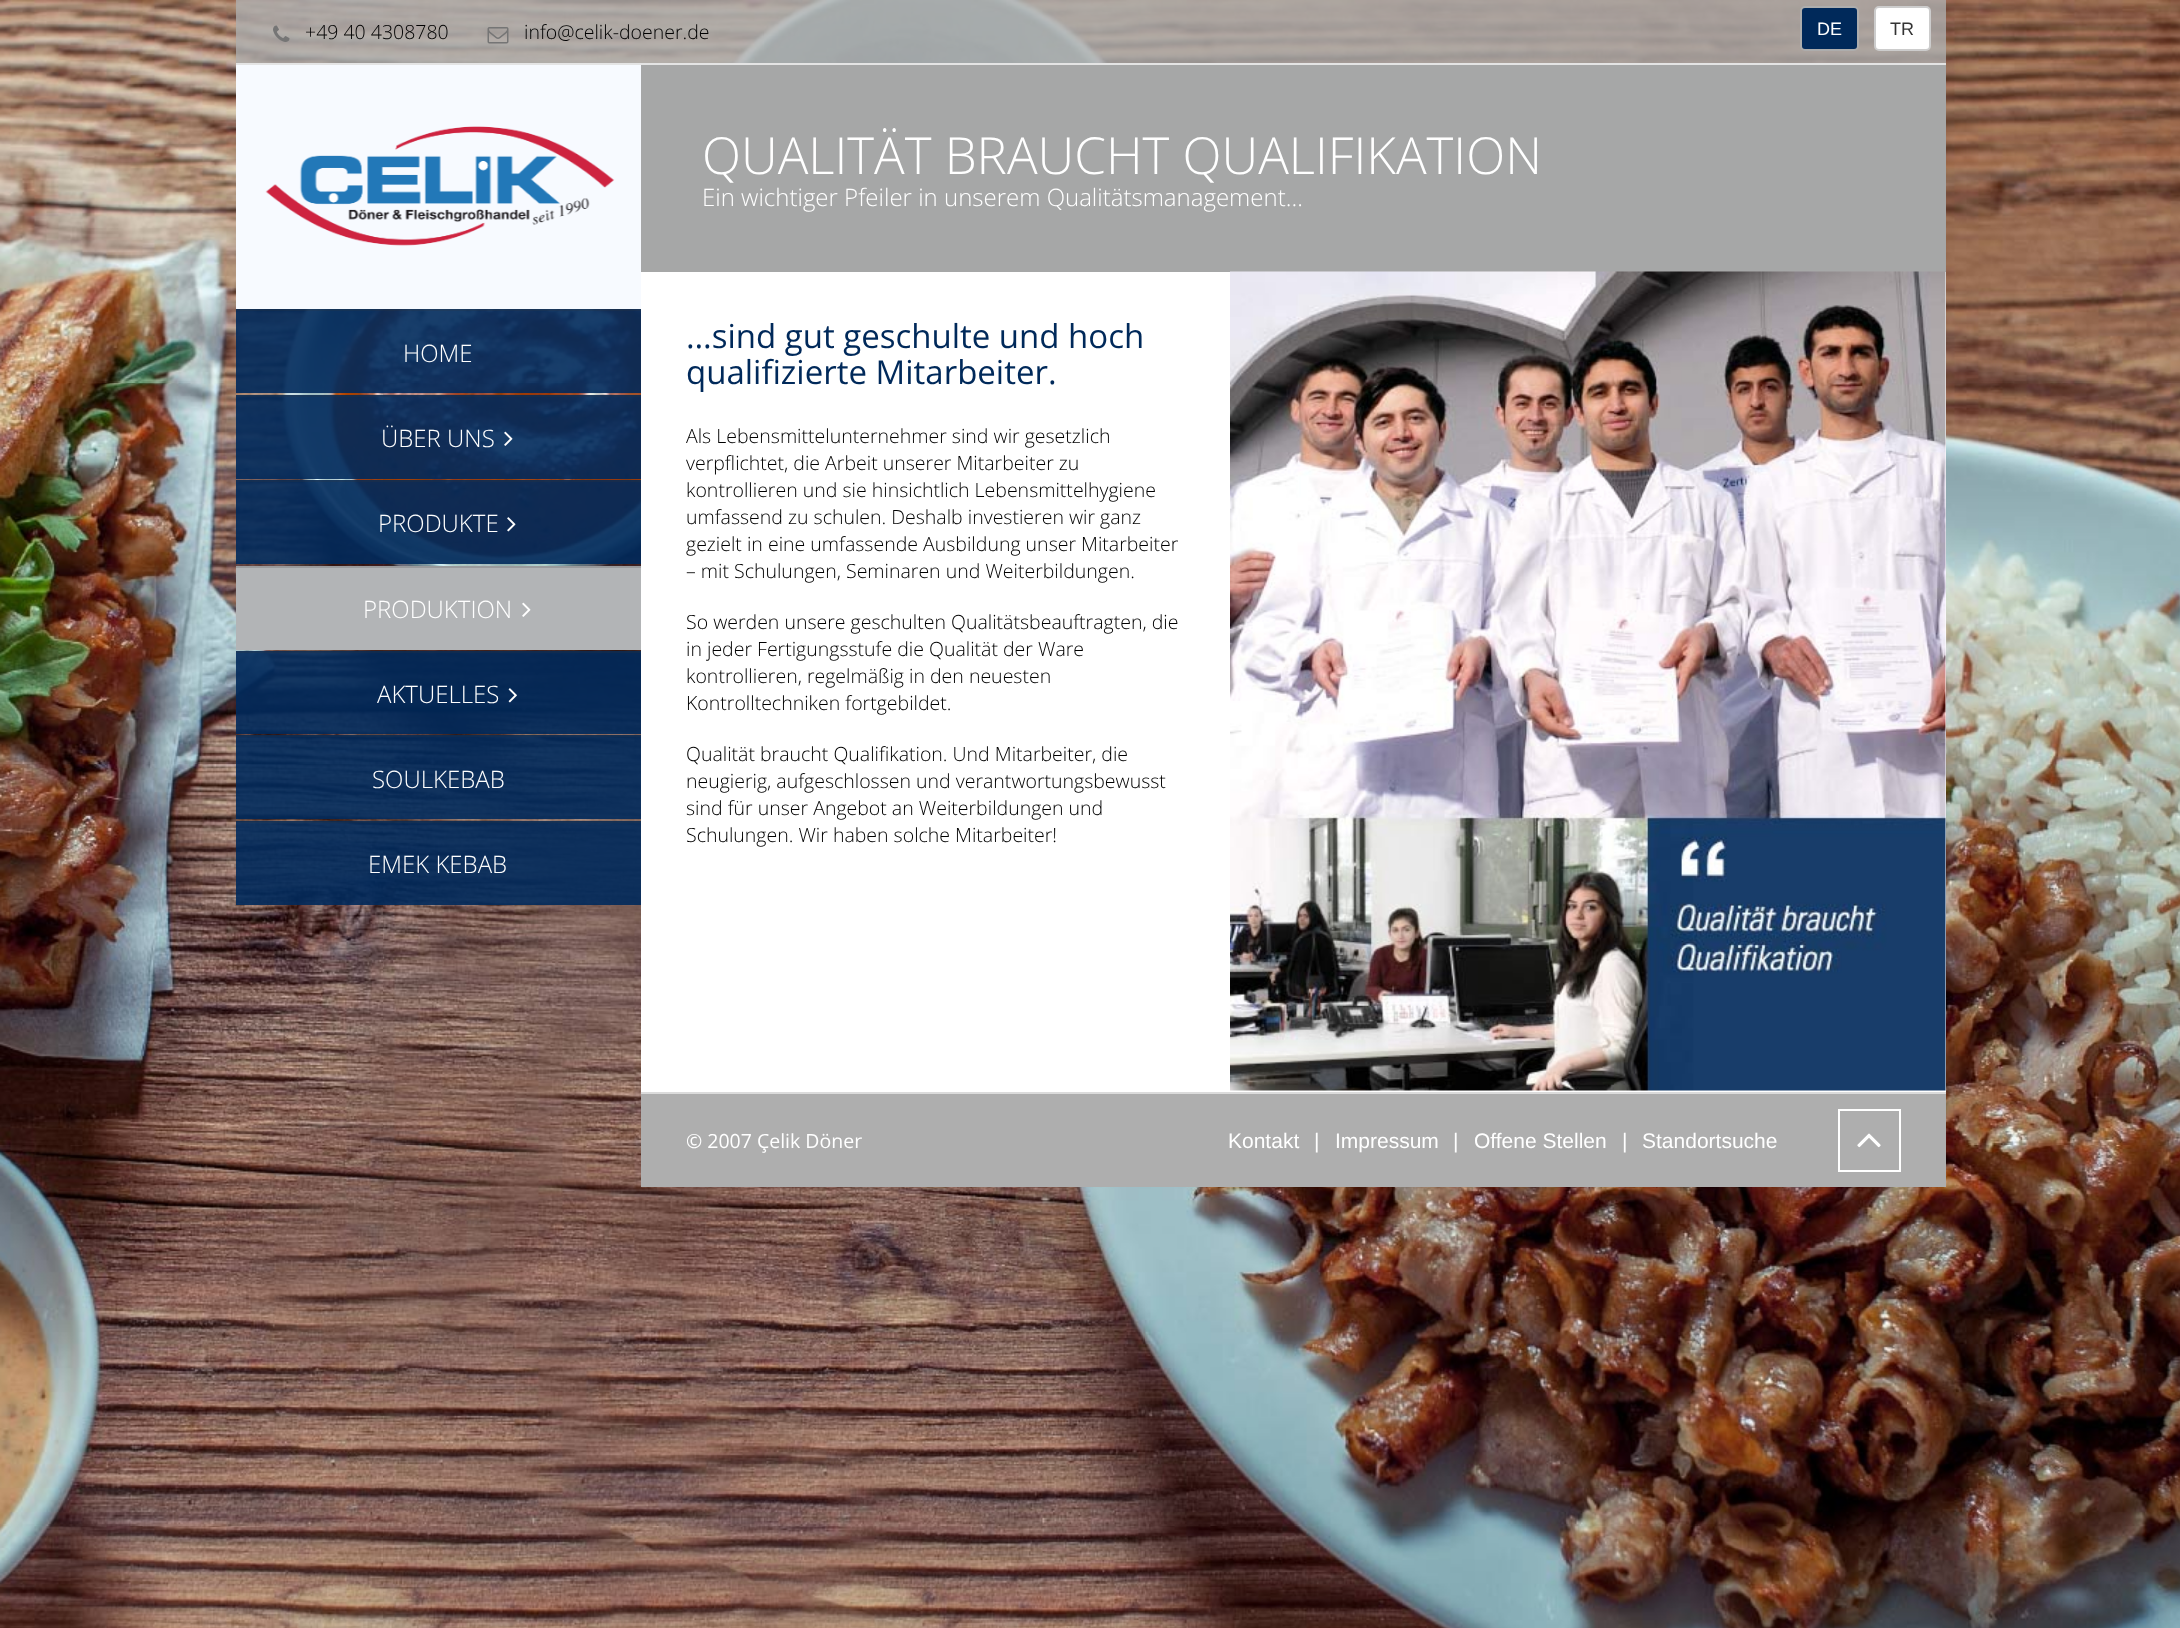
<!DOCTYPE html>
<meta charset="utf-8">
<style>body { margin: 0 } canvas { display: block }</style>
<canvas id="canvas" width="2180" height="1628"></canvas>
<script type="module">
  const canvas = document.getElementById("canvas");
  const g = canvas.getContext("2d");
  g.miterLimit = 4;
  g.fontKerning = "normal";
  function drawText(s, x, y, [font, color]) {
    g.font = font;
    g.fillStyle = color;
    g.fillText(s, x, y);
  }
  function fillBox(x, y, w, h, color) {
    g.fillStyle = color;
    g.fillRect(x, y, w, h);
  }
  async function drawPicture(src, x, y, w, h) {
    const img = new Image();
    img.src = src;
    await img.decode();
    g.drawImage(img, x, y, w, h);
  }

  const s1 = ["300 19.5px Open Sans", "#000000"];
  const s2 = ["18px Liberation Sans", "#FFFFFF"];
  const s3 = ["18px Liberation Sans", "#333333"];
  const s4 = ["300 24px Open Sans", "#FFFFFF"];
  const s5 = ["300 51px Open Sans", "#FFFFFF"];
  const s6 = ["33px Open Sans", "#00295A"];
  const s7 = ["19.5px Open Sans", "#FFFFFF"];
  const s8 = ["21px Liberation Sans", "#FFFFFF"];

  fillBox(0, 0, 2180, 1628, "#FFFFFF");
  await drawPicture("pic1.png", 0, 0, 2180, 1628);
  fillBox(236, 0, 1710, 63, "rgba(174, 174, 174, 0.8)");
  fillBox(236, 63, 1710, 2, "#E4E4E4");
  await drawPicture("pic2.png", 273, 25, 17, 17);
  drawText("+49 40 4308780", 305, 39, s1);
  await drawPicture("pic3.png", 487, 27, 22, 17);
  drawText("info@celik-doener.de", 524, 39, s1);
  g.fillStyle = "#00295A";
  g.beginPath();
  g.roundRect(1801, 7, 57, 43, 4);
  g.fill();
  g.strokeStyle = "#ADADAD";
  g.lineWidth = 2;
  g.stroke();
  drawText("DE", 1817, 35, s2);
  g.beginPath();
  g.roundRect(1875, 7, 55, 43, 4);
  g.fill();
  g.strokeStyle = "#CCCCCC";
  g.stroke();
  drawText("TR", 1890, 35, s3);
  fillBox(236, 65, 405, 244, "#F7FAFF");
  await drawPicture("pic4.png", 265, 126, 350, 120);
  fillBox(236, 309, 405, 84, "rgba(0, 41, 91, 0.9)");
  fillBox(236, 309, 405, 2, "rgba(56, 56, 56, 0.2)");
  drawText("HOME", 403, 362, s4);
  fillBox(236, 395, 405, 84, "rgba(0, 41, 91, 0.9)");
  fillBox(236, 395, 405, 2, "rgba(56, 56, 56, 0.2)");
  drawText("ÜBER UNS", 381, 447, s4);
  await drawPicture("pic5.png", 504, 431, 9, 15);
  fillBox(236, 480, 405, 84, "rgba(0, 41, 91, 0.9)");
  fillBox(236, 480, 405, 2, "rgba(56, 56, 56, 0.2)");
  drawText("PRODUKTE", 378, 532, s4);
  await drawPicture("pic6.png", 507, 517, 9, 15);
  fillBox(236, 568, 405, 82, "#B2B4B6");
  fillBox(236, 566, 405, 2, "#9A9B9D");
  drawText("PRODUKTION", 363, 618, s4);
  await drawPicture("pic7.png", 522, 602, 9, 15);
  fillBox(236, 651, 405, 83, "rgba(0, 41, 91, 0.9)");
  fillBox(236, 651, 405, 2, "rgba(56, 56, 56, 0.2)");
  drawText("AKTUELLES", 377, 703, s4);
  await drawPicture("pic8.png", 508, 688, 9, 15);
  fillBox(236, 735, 405, 84, "rgba(0, 41, 91, 0.9)");
  fillBox(236, 735, 405, 2, "rgba(56, 56, 56, 0.2)");
  drawText("SOULKEBAB", 372, 788, s4);
  fillBox(236, 821, 405, 84, "rgba(0, 41, 91, 0.9)");
  fillBox(236, 821, 405, 2, "rgba(56, 56, 56, 0.2)");
  drawText("EMEK KEBAB", 368, 873, s4);
  fillBox(641, 65, 1305, 207, "#A6A7A7");
  drawText("QUALITÄT BRAUCHT QUALIFIKATION", 702, 174, s5);
  drawText("Ein wichtiger Pfeiler in unserem Qualitätsmanagement…", 702, 206, s4);
  fillBox(641, 272, 1305, 820, "#FFFFFF");
  drawText("…sind gut geschulte und hoch", 686, 348, s6);
  drawText("qualifizierte Mitarbeiter.", 686, 384, s6);
  drawText("Als Lebensmittelunternehmer sind wir gesetzlich", 686, 443, s1);
  drawText("verpflichtet, die Arbeit unserer Mitarbeiter zu", 686, 470, s1);
  drawText("kontrollieren und sie hinsichtlich Lebensmittelhygiene", 686, 497, s1);
  drawText("umfassend zu schulen. Deshalb investieren wir ganz", 686, 524, s1);
  drawText("gezielt in eine umfassende Ausbildung unser Mitarbeiter", 686, 551, s1);
  drawText("– mit Schulungen, Seminaren und Weiterbildungen.", 686, 578, s1);
  drawText("So werden unsere geschulten Qualitätsbeauftragten, die", 686, 629, s1);
  drawText("in jeder Fertigungsstufe die Qualität der Ware", 686, 656, s1);
  drawText("kontrollieren, regelmäßig in den neuesten", 686, 683, s1);
  drawText("Kontrolltechniken fortgebildet.", 686, 710, s1);
  drawText("Qualität braucht Qualifikation. Und Mitarbeiter, die", 686, 761, s1);
  drawText("neugierig, aufgeschlossen und verantwortungsbewusst", 686, 788, s1);
  drawText("sind für unser Angebot an Weiterbildungen und", 686, 815, s1);
  drawText("Schulungen. Wir haben solche Mitarbeiter!", 686, 842, s1);
  await drawPicture("pic9.png", 1230, 271, 716, 820);
  fillBox(641, 1092, 1305, 2, "#DBDBDB");
  fillBox(641, 1094, 1305, 93, "#AEAEAE");
  drawText("© 2007 Çelik Döner", 686, 1148, s7);
  drawText("Kontakt", 1228, 1148, s8);
  drawText("|", 1314, 1148, s8);
  drawText("Impressum", 1335, 1148, s8);
  drawText("|", 1453, 1148, s8);
  drawText("Offene Stellen", 1474, 1148, s8);
  drawText("|", 1622, 1148, s8);
  drawText("Standortsuche", 1642, 1148, s8);
  g.strokeStyle = "#FFFFFF";
  g.strokeRect(1839, 1110, 61, 61);
  await drawPicture("pic10.png", 1857, 1133, 24, 15);
</script>
